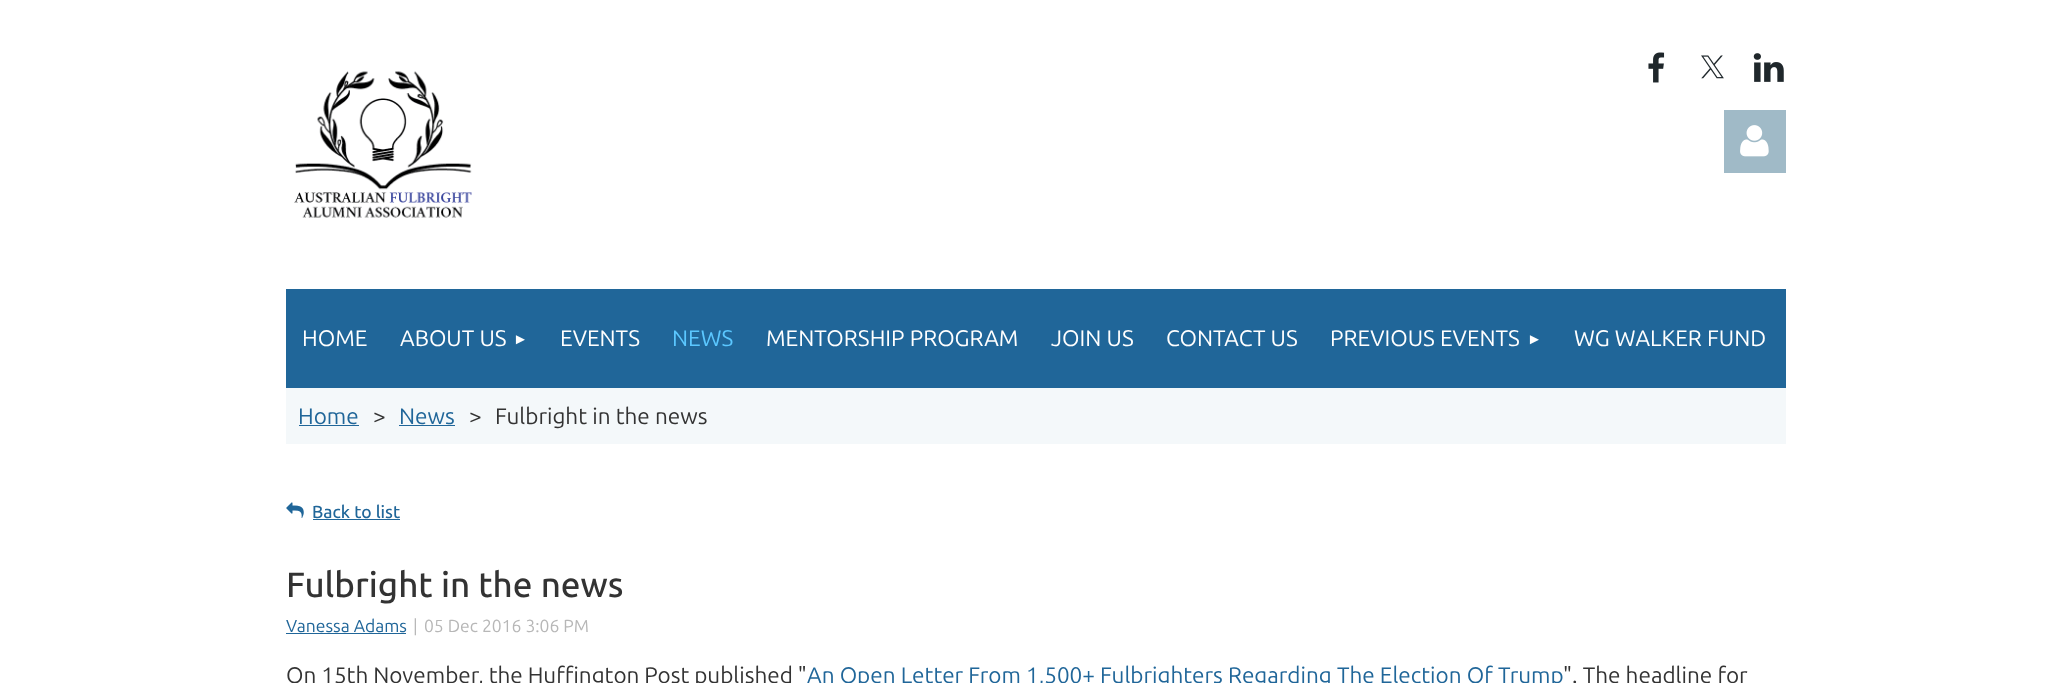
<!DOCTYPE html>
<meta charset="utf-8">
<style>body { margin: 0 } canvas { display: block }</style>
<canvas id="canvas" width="2071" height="683"></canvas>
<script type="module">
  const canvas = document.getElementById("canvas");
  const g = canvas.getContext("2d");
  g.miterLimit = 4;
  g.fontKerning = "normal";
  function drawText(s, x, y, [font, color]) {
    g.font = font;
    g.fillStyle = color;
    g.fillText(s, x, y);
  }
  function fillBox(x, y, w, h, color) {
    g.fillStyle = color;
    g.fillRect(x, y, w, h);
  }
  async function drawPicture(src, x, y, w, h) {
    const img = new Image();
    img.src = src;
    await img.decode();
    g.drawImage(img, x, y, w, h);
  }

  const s1 = ["22.5px Ubuntu", "#FFFFFF"];
  const s2 = ["15px Liberation Sans", "#FFFFFF"];
  const s3 = ["22.5px Ubuntu", "#5BC7FF"];
  const s4 = ["22.5px Ubuntu", "#206699"];
  const s5 = ["22.5px Ubuntu", "#333333"];
  const s6 = ["500 17.5px Ubuntu", "#206699"];
  const s7 = ["500 35px Ubuntu", "#333333"];
  const s8 = ["17.5px Ubuntu", "#206699"];
  const s9 = ["17.5px Ubuntu", "#B7B7B7"];

  fillBox(0, 0, 2071, 683, "#FFFFFF");
  await drawPicture("pic1.png", 294, 71, 178, 147);
  await drawPicture("pic2.png", 1648, 52, 17, 31);
  await drawPicture("pic3.png", 1701, 55, 23, 24);
  await drawPicture("pic4.png", 1753, 53, 31, 29);
  fillBox(1724, 110, 62, 63, "#A0BAC7");
  await drawPicture("pic5.png", 1740, 125, 29, 32);
  fillBox(286, 388, 1500, 56, "#F4F8FA");
  fillBox(286, 289, 1500, 99, "#206699");
  drawText("HOME", 302, 346, s1);
  drawText("ABOUT US", 400, 346, s1);
  drawText("►", 513, 344, s2);
  drawText("EVENTS", 560, 346, s1);
  drawText("NEWS", 672, 346, s3);
  drawText("MENTORSHIP PROGRAM", 766, 346, s1);
  drawText("JOIN US", 1051, 346, s1);
  drawText("CONTACT US", 1166, 346, s1);
  drawText("PREVIOUS EVENTS", 1330, 346, s1);
  drawText("►", 1527, 344, s2);
  drawText("WG WALKER FUND", 1574, 346, s1);
  drawText("Home", 298, 424, s4);
  fillBox(299, 425, 60, 1, "#206699");
  drawText(">", 373, 424, s5);
  drawText("News", 399, 424, s4);
  fillBox(399, 425, 56, 1, "#206699");
  drawText(">", 469, 424, s5);
  drawText("Fulbright in the news", 495, 424, s5);
  await drawPicture("pic6.png", 286, 502, 18, 16);
  drawText("Back to list", 312, 518, s6);
  fillBox(313, 519, 87, 1, "#206699");
  drawText("Fulbright in the news", 286, 597, s7);
  drawText("Vanessa Adams", 286, 632, s8);
  fillBox(286, 633, 120, 1, "#206699");
  drawText("|", 413, 632, s9);
  drawText("05 Dec 2016 3:06 PM", 424, 632, s9);
  g.wordSpacing = "-0.25px";
  drawText("On 15th November, the Huffington Post published \"", 286, 683, s5);
  g.wordSpacing = "0px";
  drawText("An Open Letter From 1,500+ Fulbrighters Regarding The Election Of Trump", 807, 683, s4);
  drawText("\". The headline for", 1563, 683, s5);
</script>
